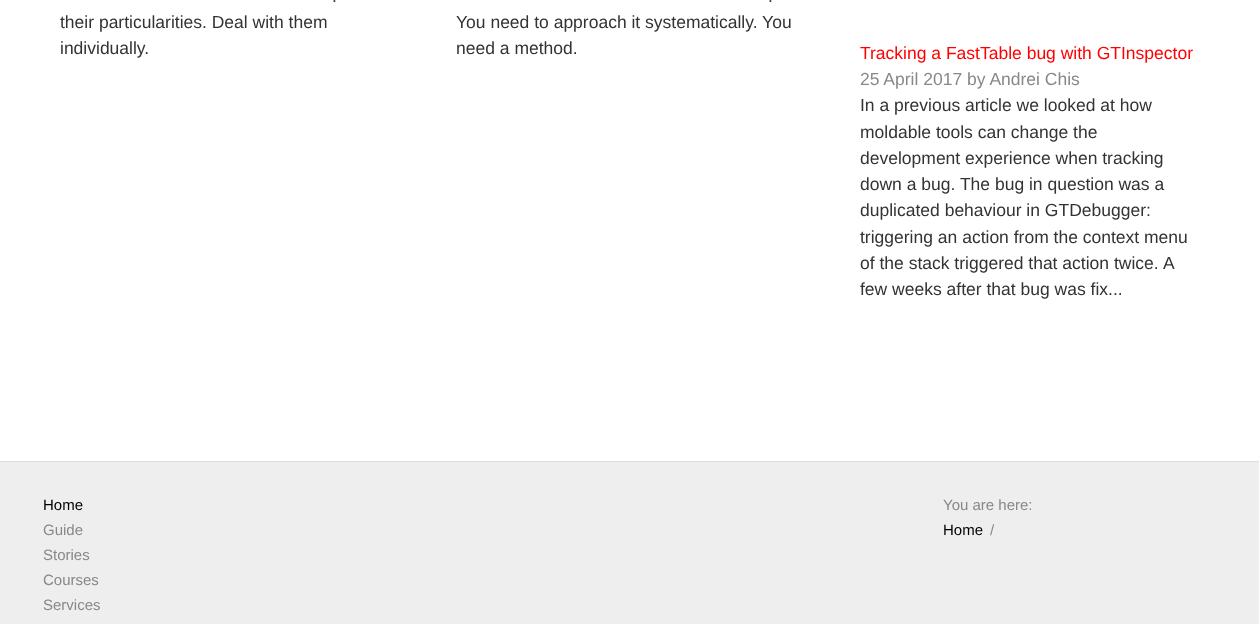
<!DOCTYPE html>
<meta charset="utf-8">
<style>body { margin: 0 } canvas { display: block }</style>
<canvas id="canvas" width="1259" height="624"></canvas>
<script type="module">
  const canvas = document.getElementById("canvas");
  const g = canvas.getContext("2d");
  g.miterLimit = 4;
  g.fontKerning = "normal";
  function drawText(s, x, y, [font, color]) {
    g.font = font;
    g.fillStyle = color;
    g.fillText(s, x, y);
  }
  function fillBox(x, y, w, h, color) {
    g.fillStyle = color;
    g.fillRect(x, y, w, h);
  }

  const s1 = ["17.5px Liberation Sans", "#333333"];
  const s2 = ["17.5px Liberation Sans", "#FF0000"];
  const s3 = ["17.5px Liberation Sans", "#888888"];
  const s4 = ["15px Liberation Sans", "#000000"];
  const s5 = ["15px Liberation Sans", "#888888"];

  fillBox(0, 0, 1259, 624, "#FFFFFF");
  drawText(".", 332, 2, s1);
  drawText("their particularities. Deal with them", 60, 28, s1);
  drawText("individually.", 60, 54, s1);
  drawText(".", 768, 2, s1);
  drawText("You need to approach it systematically. You", 456, 28, s1);
  drawText("need a method.", 456, 54, s1);
  drawText("Tracking a FastTable bug with GTInspector", 860, 59, s2);
  drawText("25 April 2017 by Andrei Chis", 860, 85, s3);
  drawText("In a previous article we looked at how", 860, 111, s1);
  drawText("moldable tools can change the", 860, 138, s1);
  drawText("development experience when tracking", 860, 164, s1);
  drawText("down a bug. The bug in question was a", 860, 190, s1);
  drawText("duplicated behaviour in GTDebugger:", 860, 216, s1);
  drawText("triggering an action from the context menu", 860, 243, s1);
  drawText("of the stack triggered that action twice.", 860, 269, s1);
  drawText("A", 1163, 269, s1);
  drawText("few weeks after that bug was fix...", 860, 295, s1);
  fillBox(0, 462, 1259, 162, "#EEEEEE");
  fillBox(0, 461, 1259, 1, "#DDDDDD");
  drawText("Home", 43, 510, s4);
  drawText("Guide", 43, 535, s5);
  drawText("Stories", 43, 560, s5);
  drawText("Courses", 43, 585, s5);
  drawText("Services", 43, 610, s5);
  drawText("You are here:", 943, 510, s5);
  drawText("Home", 943, 535, s4);
  drawText("/", 990, 535, s5);
</script>
